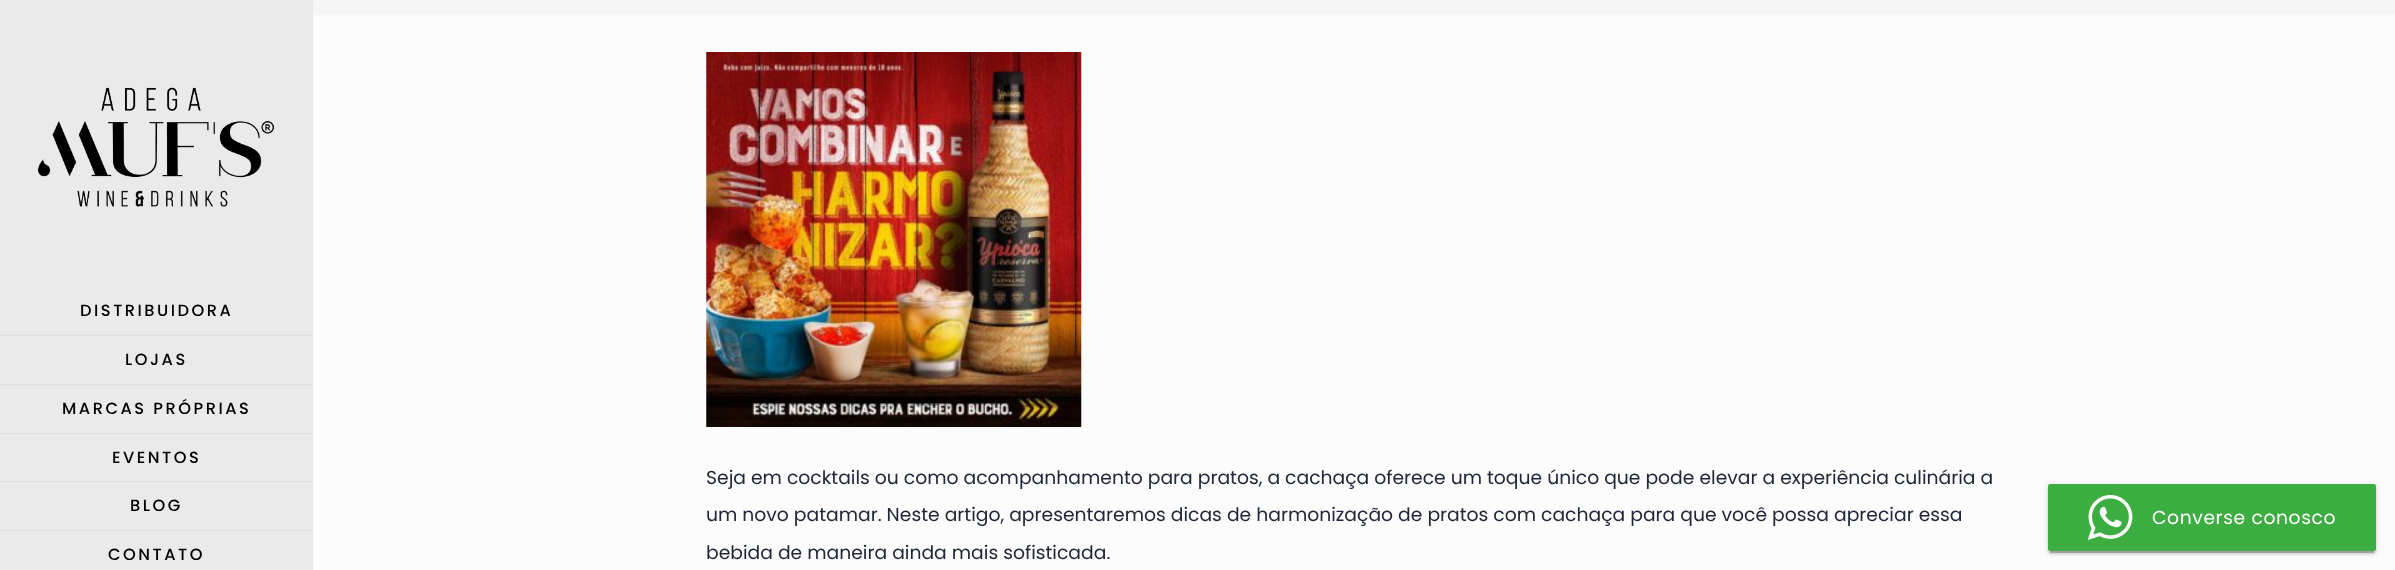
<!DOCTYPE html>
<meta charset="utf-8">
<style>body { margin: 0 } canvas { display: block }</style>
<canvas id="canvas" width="2395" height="570"></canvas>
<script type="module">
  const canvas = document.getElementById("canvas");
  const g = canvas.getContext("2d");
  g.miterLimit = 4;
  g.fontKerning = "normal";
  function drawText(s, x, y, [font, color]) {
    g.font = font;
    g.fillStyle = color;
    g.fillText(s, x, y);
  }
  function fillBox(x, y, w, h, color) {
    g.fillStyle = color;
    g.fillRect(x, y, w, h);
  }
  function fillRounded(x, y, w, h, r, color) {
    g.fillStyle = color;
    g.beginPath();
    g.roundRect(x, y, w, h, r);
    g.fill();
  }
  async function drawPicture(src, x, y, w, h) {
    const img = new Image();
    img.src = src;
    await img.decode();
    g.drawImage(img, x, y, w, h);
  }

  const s1 = ["500 16.25px Poppins", "#000000"];
  const s2 = ["18.75px Poppins", "#202738"];
  const s3 = ["18.75px Poppins", "#FFFFFF"];

  fillBox(0, 0, 2395, 570, "#FCFCFC");
  fillBox(0, 0, 313, 570, "#EAEAEA");
  await drawPicture("pic1.png", 37, 87, 238, 120);
  fillBox(0, 335, 313, 1, "#DEDEDE");
  g.letterSpacing = "2.5px";
  drawText("DISTRIBUIDORA", 80, 316, s1);
  fillBox(0, 384, 313, 1, "#DEDEDE");
  drawText("LOJAS", 125, 365, s1);
  fillBox(0, 433, 313, 1, "#DEDEDE");
  drawText("MARCAS PRÓPRIAS", 62, 414, s1);
  fillBox(0, 481, 313, 1, "#DEDEDE");
  drawText("EVENTOS", 112, 463, s1);
  fillBox(0, 530, 313, 1, "#DEDEDE");
  drawText("BLOG", 130, 511, s1);
  drawText("CONTATO", 108, 560, s1);
  fillBox(313, 0, 2082, 15, "#F7F7F7");
  await drawPicture("pic2.png", 706, 52, 376, 375);
  g.letterSpacing = "0px";
  drawText("Seja em cocktails ou como acompanhamento para pratos, a cachaça oferece um toque único que pode elevar a experiência culinária a", 706, 484, s2);
  drawText("um novo patamar. Neste artigo, apresentaremos dicas de harmonização de pratos com cachaça para que você possa apreciar essa", 706, 521, s2);
  drawText("bebida de maneira ainda mais sofisticada.", 706, 559, s2);
  g.fillStyle = "rgba(0, 0, 0, 0.2)";
  g.filter = "blur(0.5px)";
  g.beginPath();
  g.rect(2050, 490, 324, 63);
  g.fill();
  g.filter = "none";
  g.fillStyle = "rgba(0, 0, 0, 0.12)";
  g.filter = "blur(3px)";
  g.beginPath();
  g.roundRect(2048, 485, 328, 68, 2.5);
  g.fill();
  g.filter = "none";
  g.fillStyle = "rgba(0, 0, 0, 0.14)";
  g.filter = "blur(1px)";
  g.beginPath();
  g.roundRect(2048, 486, 328, 68, 2.5);
  g.fill();
  g.filter = "none";
  fillRounded(2048, 484, 328, 67, 2.5, "#3CAD40");
  await drawPicture("pic3.png", 2088, 495, 45, 45);
  g.letterSpacing = "0.6px";
  drawText("Converse conosco", 2152, 524, s3);
</script>
